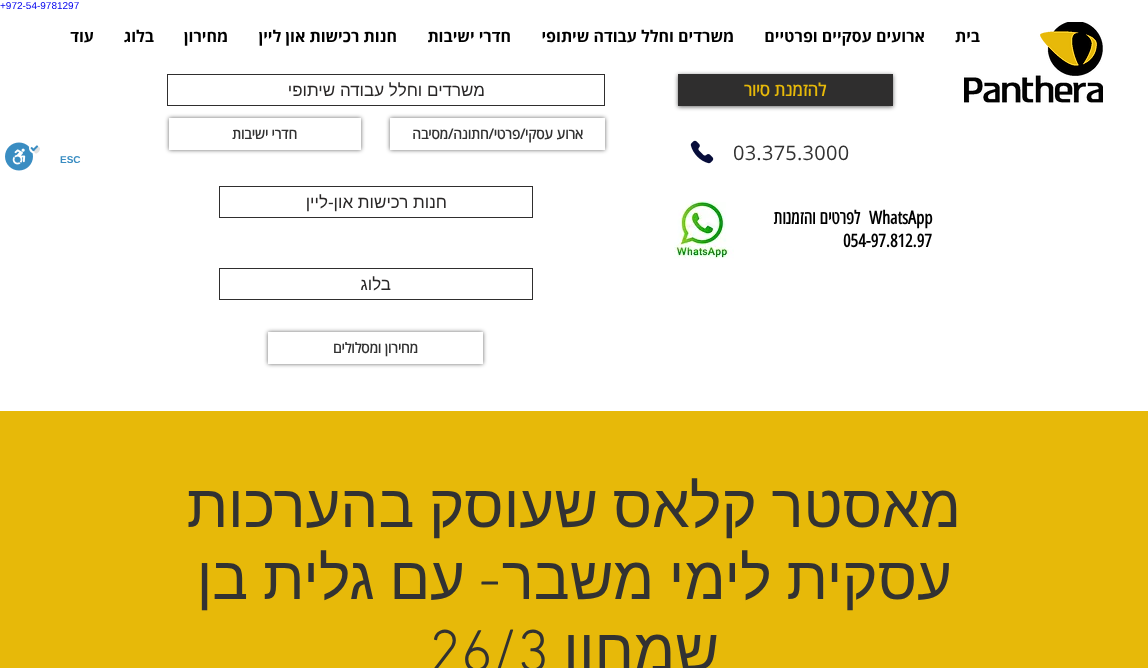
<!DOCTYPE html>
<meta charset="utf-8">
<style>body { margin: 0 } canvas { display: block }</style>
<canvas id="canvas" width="1148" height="668"></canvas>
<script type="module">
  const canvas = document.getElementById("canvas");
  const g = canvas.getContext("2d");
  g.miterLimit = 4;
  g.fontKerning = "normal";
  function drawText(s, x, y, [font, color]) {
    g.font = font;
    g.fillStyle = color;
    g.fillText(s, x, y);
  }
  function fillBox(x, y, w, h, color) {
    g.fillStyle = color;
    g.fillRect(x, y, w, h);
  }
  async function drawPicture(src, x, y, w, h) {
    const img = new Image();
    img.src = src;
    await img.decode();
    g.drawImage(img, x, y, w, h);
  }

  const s1 = ["10px Liberation Sans", "#0000EE"];
  const s2 = ["bold 16px 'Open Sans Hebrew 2'", "#000000"];
  const s3 = ["bold 17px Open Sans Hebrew", "#E7B909"];
  const s4 = ["17px Liberation Sans", "#282626"];
  const s5 = ["bold 14px Open Sans Hebrew", "#323232"];
  const s6 = ["20px Open Sans", "#323232"];
  const s7 = ["bold 18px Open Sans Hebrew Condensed", "#000000"];
  const s8 = ["60px Liberation Sans", "#323232"];
  const s9 = ["300 60px 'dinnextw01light'", "#323232"];
  const s10 = ["bold 10px Liberation Sans", "#3A8DC2"];

  fillBox(0, 0, 1148, 668, "#FFFFFF");
  drawText("+972-54-9781297", 0, 9, s1);
  await drawPicture("pic1.png", 964, 22, 139, 81);
  g.direction = "rtl";
  drawText("בית", 980, 42, s2);
  drawText("ארועים עסקיים ופרטיים", 925, 42, s2);
  drawText("משרדים וחלל עבודה שיתופי", 734, 42, s2);
  drawText("חדרי ישיבות", 511, 42, s2);
  drawText("חנות רכישות און ליין", 397, 42, s2);
  drawText("מחירון", 228, 42, s2);
  drawText("בלוג", 154, 42, s2);
  drawText("עוד", 94, 42, s2);
  g.fillStyle = "rgba(0, 0, 0, 0.6)";
  g.filter = "blur(2px)";
  g.beginPath();
  g.rect(678, 75, 215, 32);
  g.fill();
  g.filter = "none";
  fillBox(678, 74, 215, 32, "#2F2E2E");
  drawText("להזמנת סיור", 826, 96, s3);
  g.strokeStyle = "#2F2E2E";
  g.strokeRect(167.5, 74.5, 437, 31);
  drawText("משרדים וחלל עבודה שיתופי", 485, 96, s4);
  g.save();
  g.beginPath();
  g.moveTo(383, 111);
  g.lineTo(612, 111);
  g.lineTo(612, 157);
  g.lineTo(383, 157);
  g.closePath();
  g.moveTo(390, 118);
  g.lineTo(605, 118);
  g.lineTo(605, 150);
  g.lineTo(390, 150);
  g.closePath();
  g.clip("evenodd");
  g.fillStyle = "rgba(0, 0, 0, 0.6)";
  g.filter = "blur(2px)";
  g.beginPath();
  g.rect(390, 118, 215, 32);
  g.fill();
  g.filter = "none";
  g.restore();
  drawText("ארוע עסקי/פרטי/חתונה/מסיבה", 583, 139, s5);
  g.save();
  g.beginPath();
  g.moveTo(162, 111);
  g.lineTo(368, 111);
  g.lineTo(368, 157);
  g.lineTo(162, 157);
  g.closePath();
  g.moveTo(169, 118);
  g.lineTo(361, 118);
  g.lineTo(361, 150);
  g.lineTo(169, 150);
  g.closePath();
  g.clip("evenodd");
  g.fillStyle = "rgba(0, 0, 0, 0.6)";
  g.filter = "blur(2px)";
  g.beginPath();
  g.rect(169, 118, 192, 32);
  g.fill();
  g.filter = "none";
  g.restore();
  drawText("חדרי ישיבות", 297, 139, s5);
  g.letterSpacing = "0.25px";
  g.direction = "ltr";
  drawText("03.375.3000", 733, 160, s6);
  await drawPicture("pic2.png", 690, 140, 24, 24);
  g.letterSpacing = "0px";
  drawText("WhatsApp", 869, 224, s7);
  g.direction = "rtl";
  drawText("לפרטים והזמנות", 860, 224, s7);
  g.direction = "ltr";
  drawText("054-97.812.97", 843, 247, s7);
  await drawPicture("pic3.png", 674, 201, 60, 58);
  g.strokeRect(219.5, 186.5, 313, 31);
  g.direction = "rtl";
  drawText("חנות רכישות און-ליין", 447, 208, s4);
  g.strokeRect(219.5, 268.5, 313, 31);
  drawText("בלוג", 391, 290, s4);
  g.save();
  g.beginPath();
  g.moveTo(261, 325);
  g.lineTo(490, 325);
  g.lineTo(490, 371);
  g.lineTo(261, 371);
  g.closePath();
  g.moveTo(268, 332);
  g.lineTo(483, 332);
  g.lineTo(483, 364);
  g.lineTo(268, 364);
  g.closePath();
  g.clip("evenodd");
  g.fillStyle = "rgba(0, 0, 0, 0.6)";
  g.filter = "blur(2px)";
  g.beginPath();
  g.rect(268, 332, 215, 32);
  g.fill();
  g.filter = "none";
  g.restore();
  drawText("מחירון ומסלולים", 418, 353, s5);
  fillBox(0, 411, 1148, 257, "#E7B909");
  g.wordSpacing = "-2px";
  drawText("מאסטר קלאס שעוסק בהערכות", 961, 527, s8);
  drawText("עסקית לימי משבר", 952, 599, s8);
  g.wordSpacing = "0px";
  drawText("-", 501, 599, s9);
  g.wordSpacing = "-2px";
  drawText("עם גלית בן", 465, 599, s8);
  g.wordSpacing = "0px";
  drawText("שמחון", 719, 671, s8);
  g.direction = "ltr";
  drawText("26/3", 429, 671, s9);
  drawText("ESC", 60, 163, s10);
  await drawPicture("pic4.png", 5, 142, 35, 29);
</script>
